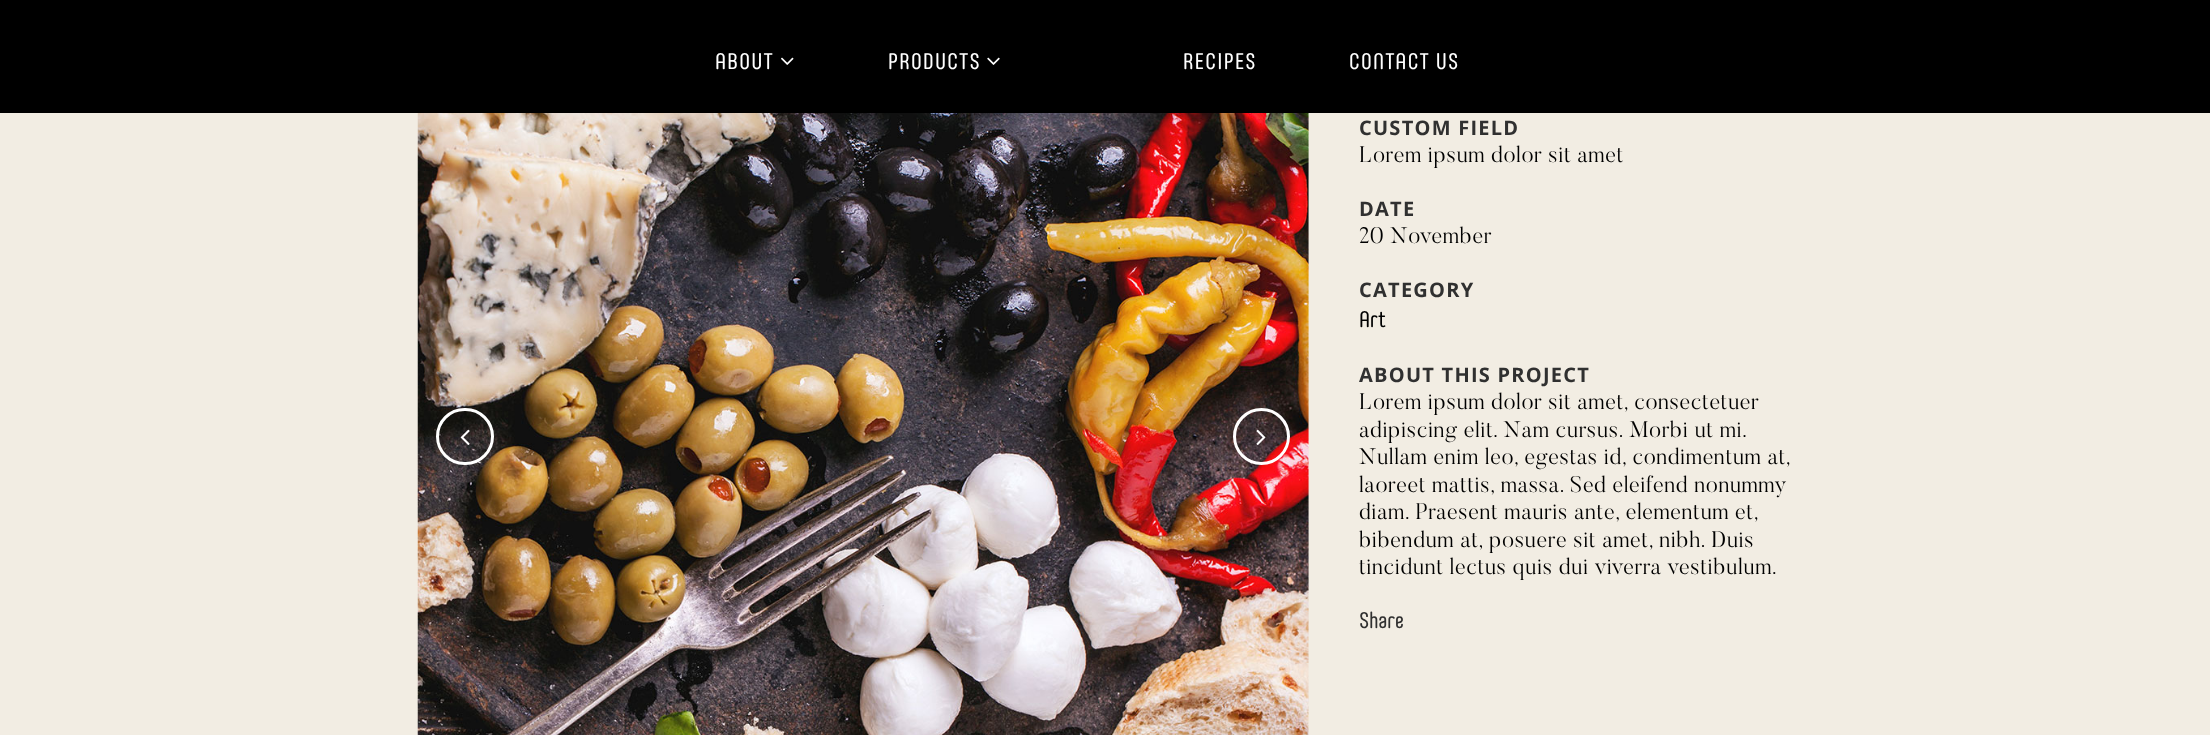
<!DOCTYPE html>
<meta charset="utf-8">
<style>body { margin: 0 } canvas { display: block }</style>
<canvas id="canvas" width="2210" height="735"></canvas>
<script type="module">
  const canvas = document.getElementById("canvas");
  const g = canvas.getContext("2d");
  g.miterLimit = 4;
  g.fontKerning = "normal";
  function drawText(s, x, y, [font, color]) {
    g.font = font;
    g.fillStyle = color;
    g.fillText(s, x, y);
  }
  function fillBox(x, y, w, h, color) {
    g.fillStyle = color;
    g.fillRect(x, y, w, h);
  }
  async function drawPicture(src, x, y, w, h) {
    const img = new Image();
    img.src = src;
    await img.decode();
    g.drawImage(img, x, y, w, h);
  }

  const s1 = ["22.5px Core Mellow", "#FFFFFF"];
  const s2 = ["bold 20px Open Sans", "#303030"];
  const s3 = ["300 22.5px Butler", "#000000"];
  const s4 = ["22.5px Core Mellow", "#000000"];
  const s5 = ["22.5px Core Mellow", "#303030"];

  fillBox(0, 0, 2210, 735, "#F2EDE3");
  fillBox(0, 0, 2210, 113, "#000000");
  g.letterSpacing = "1.25px";
  drawText("ABOUT", 715, 69, s1);
  await drawPicture("pic1.png", 781, 57, 13, 8);
  drawText("PRODUCTS", 888, 69, s1);
  await drawPicture("pic2.png", 987, 57, 13, 8);
  drawText("RECIPES", 1183, 69, s1);
  drawText("CONTACT US", 1349, 69, s1);
  await drawPicture("pic3.png", 417, 113, 892, 622);
  g.beginPath();
  g.roundRect(437.5, 409.5, 55, 54, 27);
  g.strokeStyle = "#FFFFFF";
  g.lineWidth = 3;
  g.stroke();
  await drawPicture("pic4.png", 460, 429, 10, 16);
  g.beginPath();
  g.arc(1261.5, 436.5, 27, 0, Math.PI * 2);
  g.stroke();
  await drawPicture("pic5.png", 1256, 429, 10, 16);
  drawText("CUSTOM FIELD", 1359, 135, s2);
  g.letterSpacing = "0.6px";
  drawText("Lorem ipsum dolor sit amet", 1359, 162, s3);
  g.letterSpacing = "1.25px";
  drawText("DATE", 1359, 216, s2);
  g.letterSpacing = "0.6px";
  drawText("20 November", 1359, 243, s3);
  g.letterSpacing = "1.25px";
  drawText("CATEGORY", 1359, 297, s2);
  g.letterSpacing = "0px";
  drawText("Art", 1359, 327, s4);
  g.letterSpacing = "1.25px";
  drawText("ABOUT THIS PROJECT", 1359, 382, s2);
  g.letterSpacing = "0.6px";
  drawText("Lorem ipsum dolor sit amet, consectetuer", 1359, 409, s3);
  drawText("adipiscing elit. Nam cursus. Morbi ut mi.", 1359, 437, s3);
  drawText("Nullam enim leo, egestas id, condimentum at,", 1359, 464, s3);
  drawText("laoreet mattis, massa. Sed eleifend nonummy", 1359, 492, s3);
  drawText("diam. Praesent mauris ante, elementum et,", 1359, 519, s3);
  drawText("bibendum at, posuere sit amet, nibh. Duis", 1359, 547, s3);
  drawText("tincidunt lectus quis dui viverra vestibulum.", 1359, 574, s3);
  g.letterSpacing = "0px";
  drawText("Share", 1359, 628, s5);
</script>
